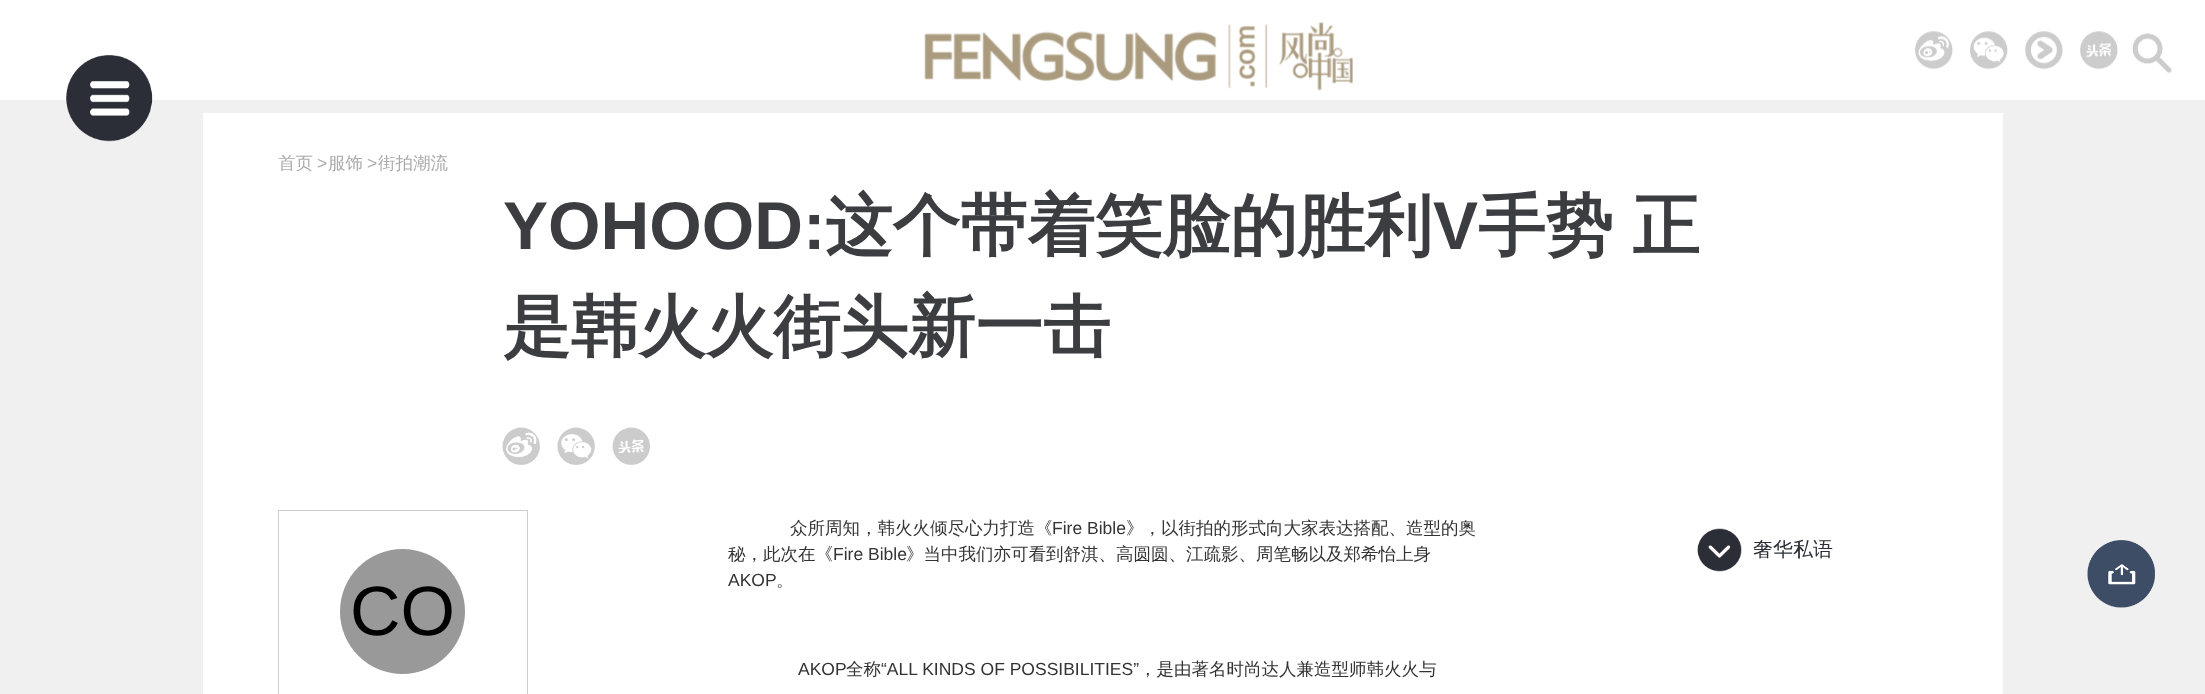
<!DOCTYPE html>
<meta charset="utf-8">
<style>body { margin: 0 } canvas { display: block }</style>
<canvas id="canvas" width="2205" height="694"></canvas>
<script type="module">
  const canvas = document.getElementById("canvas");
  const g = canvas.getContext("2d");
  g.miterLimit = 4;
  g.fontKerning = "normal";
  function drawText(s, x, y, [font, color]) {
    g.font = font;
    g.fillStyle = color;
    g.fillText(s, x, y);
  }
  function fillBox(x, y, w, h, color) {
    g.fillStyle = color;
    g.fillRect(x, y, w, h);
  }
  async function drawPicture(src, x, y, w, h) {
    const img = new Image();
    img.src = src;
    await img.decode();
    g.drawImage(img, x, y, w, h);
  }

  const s1 = ["500 17.5px WenQuanYi Zen Hei", "#AAAAAA"];
  const s2 = ["17.5px Liberation Sans", "#AAAAAA"];
  const s3 = ["bold 67.5px Liberation Sans", "#3C3D41"];
  const s4 = ["bold 67.5px WenQuanYi Zen Hei", "#3C3D41"];
  const s5 = ["500 17.5px WenQuanYi Zen Hei", "#333333"];
  const s6 = ["17.5px Liberation Sans", "#333333"];
  const s7 = ["500 20px WenQuanYi Zen Hei", "#2B2E37"];
  const s8 = ["70px Liberation Sans", "#000000"];

  fillBox(0, 0, 2205, 694, "#F0F0F0");
  fillBox(0, 0, 2205, 100, "#FFFFFF");
  await drawPicture("pic1.png", 924, 22, 429, 69);
  await drawPicture("pic2.png", 1915, 31, 38, 39);
  await drawPicture("pic3.png", 1970, 31, 38, 39);
  await drawPicture("pic4.png", 2025, 31, 38, 39);
  await drawPicture("pic5.png", 2080, 31, 38, 39);
  await drawPicture("pic6.png", 2132, 33, 40, 41);
  await drawPicture("pic7.png", 66, 55, 87, 87);
  fillBox(203, 113, 1800, 581, "#FFFFFF");
  drawText("首页", 278, 169, s1);
  drawText(">", 317, 169, s2);
  drawText("服饰", 328, 169, s1);
  drawText(">", 367, 169, s2);
  drawText("街拍潮流", 378, 169, s1);
  drawText("YOHOOD:", 503, 249, s3);
  drawText("这个带着笑脸的胜利", 825, 249, s4);
  drawText("V", 1433, 249, s3);
  g.wordSpacing = "-1px";
  drawText("手势 正", 1478, 249, s4);
  g.wordSpacing = "0px";
  drawText("是韩火火街头新一击", 503, 350, s4);
  await drawPicture("pic8.png", 502, 427, 38, 38);
  await drawPicture("pic9.png", 557, 427, 38, 38);
  await drawPicture("pic10.png", 612, 427, 38, 38);
  drawText("众所周知，韩火火倾尽心力打造《", 790, 534, s5);
  drawText("Fire Bible", 1052, 534, s6);
  drawText("》，以街拍的形式向大家表达搭配、造型的奥", 1126, 534, s5);
  drawText("秘，此次在《", 728, 560, s5);
  drawText("Fire Bible", 833, 560, s6);
  drawText("》当中我们亦可看到舒淇、高圆圆、江疏影、周笔畅以及郑希怡上身", 906, 560, s5);
  drawText("AKOP", 728, 586, s6);
  drawText("。", 776, 586, s5);
  drawText("AKOP", 798, 675, s6);
  drawText("全称", 846, 675, s5);
  drawText("“ALL KINDS OF POSSIBILITIES”", 881, 675, s6);
  drawText("，是由著名时尚达人兼造型师韩火火与", 1139, 675, s5);
  await drawPicture("pic11.png", 1697, 528, 45, 44);
  drawText("奢华私语", 1753, 556, s7);
  g.strokeStyle = "#CCCCCC";
  g.strokeRect(278.5, 510.5, 249, 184);
  g.fillStyle = "#999999";
  g.beginPath();
  g.arc(402.5, 611.5, 62.5, 0, Math.PI * 2);
  g.fill();
  drawText("CO", 350, 635, s8);
  await drawPicture("pic12.png", 2087, 540, 68, 68);
</script>
